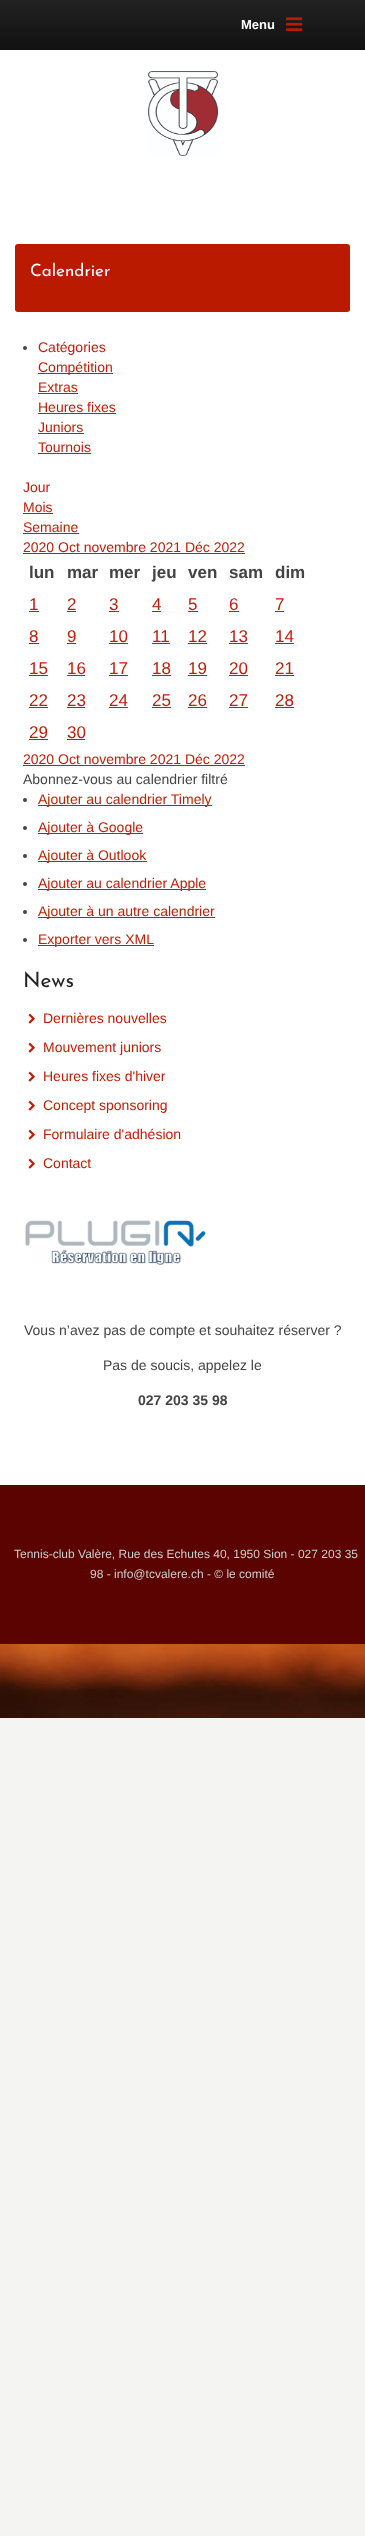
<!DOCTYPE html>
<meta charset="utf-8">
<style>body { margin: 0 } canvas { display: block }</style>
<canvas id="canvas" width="365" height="2536"></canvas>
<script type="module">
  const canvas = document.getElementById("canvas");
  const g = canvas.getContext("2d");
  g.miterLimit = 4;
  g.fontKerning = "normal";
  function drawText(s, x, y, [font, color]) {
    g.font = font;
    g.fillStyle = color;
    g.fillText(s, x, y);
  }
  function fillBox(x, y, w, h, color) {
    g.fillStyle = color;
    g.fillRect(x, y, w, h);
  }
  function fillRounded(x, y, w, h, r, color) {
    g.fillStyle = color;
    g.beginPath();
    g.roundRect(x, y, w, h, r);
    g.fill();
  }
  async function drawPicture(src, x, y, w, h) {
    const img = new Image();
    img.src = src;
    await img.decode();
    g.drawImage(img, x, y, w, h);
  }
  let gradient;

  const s1 = ["bold 13px Liberation Sans", "#FFFFFF"];
  const s2 = ["100 17px Josefin Sans", "#FFFFFF"];
  const s3 = ["14px Liberation Sans", "#C01D04"];
  const s4 = ["bold 17px Liberation Sans", "#444444"];
  const s5 = ["17px Liberation Sans", "#C01D04"];
  const s6 = ["14px Liberation Sans", "#444444"];
  const s7 = ["100 21px Josefin Sans", "#222222"];
  const s8 = ["bold 14px Liberation Sans", "#444444"];
  const s9 = ["12px Liberation Sans", "#CCCCCC"];

  fillBox(0, 0, 365, 2536, "#F4F4F2");
  await drawPicture("pic1.png", 0, 1644, 365, 74);
  gradient = g.createLinearGradient(183, 0, 183, 50);
  gradient.addColorStop(0, "#222222");
  gradient.addColorStop(1, "#111111");
  g.fillStyle = gradient;
  g.fillRect(0, 0, 365, 50);
  drawText("Menu", 241, 29, s1);
  await drawPicture("pic2.png", 286, 17, 17, 14);
  fillBox(0, 50, 365, 1435, "#FFFFFF");
  await drawPicture("pic3.png", 148, 71, 70, 85);
  fillRounded(15, 244, 335, 68, 3, "#BA1A00");
  drawText("Calendrier", 30, 276, s2);
  g.fillStyle = "#444444";
  g.beginPath();
  g.arc(25, 348, 2, 0, Math.PI * 2);
  g.fill();
  drawText("Catégories", 38, 352, s3);
  fillBox(38, 373, 75, 1, "#C01D04");
  drawText("Compétition", 38, 372, s3);
  drawText("Extras", 38, 392, s3);
  fillBox(38, 393, 40, 1, "#C01D04");
  drawText("Heures fixes", 38, 412, s3);
  fillBox(38, 413, 78, 1, "#C01D04");
  drawText("Juniors", 38, 432, s3);
  fillBox(38, 433, 46, 1, "#C01D04");
  drawText("Tournois", 38, 452, s3);
  fillBox(38, 453, 53, 1, "#C01D04");
  drawText("Jour", 23, 492, s3);
  drawText("Mois", 23, 512, s3);
  fillBox(23, 513, 30, 1, "#C01D04");
  drawText("Semaine", 23, 532, s3);
  fillBox(23, 533, 56, 1, "#C01D04");
  drawText("2020 Oct novembre 2021 Déc 2022", 23, 552, s3);
  fillBox(23, 553, 222, 1, "#C01D04");
  drawText("lun", 29, 578, s4);
  drawText("mar", 67, 578, s4);
  drawText("mer", 109, 578, s4);
  drawText("jeu", 152, 578, s4);
  drawText("ven", 188, 578, s4);
  drawText("sam", 229, 578, s4);
  drawText("dim", 275, 578, s4);
  drawText("1", 29, 610, s5);
  fillBox(29, 611, 10, 1, "#C01D04");
  drawText("2", 67, 610, s5);
  fillBox(67, 611, 9, 1, "#C01D04");
  drawText("3", 109, 610, s5);
  fillBox(109, 611, 10, 1, "#C01D04");
  drawText("4", 152, 610, s5);
  fillBox(152, 611, 9, 1, "#C01D04");
  drawText("5", 188, 610, s5);
  fillBox(188, 611, 10, 1, "#C01D04");
  drawText("6", 229, 610, s5);
  fillBox(229, 611, 10, 1, "#C01D04");
  drawText("7", 275, 610, s5);
  fillBox(275, 611, 9, 1, "#C01D04");
  drawText("8", 29, 642, s5);
  fillBox(29, 643, 10, 1, "#C01D04");
  drawText("9", 67, 642, s5);
  fillBox(67, 643, 9, 1, "#C01D04");
  drawText("10", 109, 642, s5);
  fillBox(109, 643, 19, 1, "#C01D04");
  drawText("11", 152, 642, s5);
  fillBox(152, 643, 18, 1, "#C01D04");
  drawText("12", 188, 642, s5);
  fillBox(188, 643, 19, 1, "#C01D04");
  drawText("13", 229, 642, s5);
  fillBox(229, 643, 19, 1, "#C01D04");
  drawText("14", 275, 642, s5);
  fillBox(275, 643, 19, 1, "#C01D04");
  drawText("15", 29, 674, s5);
  fillBox(29, 675, 19, 1, "#C01D04");
  drawText("16", 67, 674, s5);
  fillBox(67, 675, 18, 1, "#C01D04");
  drawText("17", 109, 674, s5);
  fillBox(109, 675, 19, 1, "#C01D04");
  drawText("18", 152, 674, s5);
  fillBox(152, 675, 19, 1, "#C01D04");
  drawText("19", 188, 674, s5);
  fillBox(188, 675, 19, 1, "#C01D04");
  drawText("20", 229, 674, s5);
  fillBox(229, 675, 19, 1, "#C01D04");
  drawText("21", 275, 674, s5);
  fillBox(275, 675, 19, 1, "#C01D04");
  drawText("22", 29, 706, s5);
  fillBox(29, 707, 19, 1, "#C01D04");
  drawText("23", 67, 706, s5);
  fillBox(67, 707, 18, 1, "#C01D04");
  drawText("24", 109, 706, s5);
  fillBox(109, 707, 19, 1, "#C01D04");
  drawText("25", 152, 706, s5);
  fillBox(152, 707, 19, 1, "#C01D04");
  drawText("26", 188, 706, s5);
  fillBox(188, 707, 19, 1, "#C01D04");
  drawText("27", 229, 706, s5);
  fillBox(229, 707, 19, 1, "#C01D04");
  drawText("28", 275, 706, s5);
  fillBox(275, 707, 19, 1, "#C01D04");
  drawText("29", 29, 738, s5);
  fillBox(29, 739, 19, 1, "#C01D04");
  drawText("30", 67, 738, s5);
  fillBox(67, 739, 18, 1, "#C01D04");
  drawText("2020 Oct novembre 2021 Déc 2022", 23, 764, s3);
  fillBox(23, 765, 222, 1, "#C01D04");
  drawText("Abonnez-vous au calendrier filtré", 23, 784, s6);
  g.beginPath();
  g.arc(25, 800, 2, 0, Math.PI * 2);
  g.fill();
  fillBox(38, 805, 174, 1, "#C01D04");
  drawText("Ajouter au calendrier Timely", 38, 804, s3);
  g.fillStyle = "#444444";
  g.beginPath();
  g.arc(25, 828, 2, 0, Math.PI * 2);
  g.fill();
  fillBox(38, 833, 105, 1, "#C01D04");
  drawText("Ajouter à Google", 38, 832, s3);
  g.fillStyle = "#444444";
  g.beginPath();
  g.arc(25, 856, 2, 0, Math.PI * 2);
  g.fill();
  fillBox(38, 861, 109, 1, "#C01D04");
  drawText("Ajouter à Outlook", 38, 860, s3);
  g.fillStyle = "#444444";
  g.beginPath();
  g.arc(25, 884, 2, 0, Math.PI * 2);
  g.fill();
  fillBox(38, 889, 168, 1, "#C01D04");
  drawText("Ajouter au calendrier Apple", 38, 888, s3);
  g.fillStyle = "#444444";
  g.beginPath();
  g.arc(25, 912, 2, 0, Math.PI * 2);
  g.fill();
  fillBox(38, 917, 177, 1, "#C01D04");
  drawText("Ajouter à un autre calendrier", 38, 916, s3);
  g.fillStyle = "#444444";
  g.beginPath();
  g.arc(25, 940, 2, 0, Math.PI * 2);
  g.fill();
  fillBox(38, 945, 116, 1, "#C01D04");
  drawText("Exporter vers XML", 38, 944, s3);
  drawText("News", 23, 987, s7);
  await drawPicture("pic4.png", 28, 1013, 7, 11);
  drawText("Dernières nouvelles", 43, 1023, s3);
  await drawPicture("pic4.png", 28, 1042, 7, 11);
  drawText("Mouvement juniors", 43, 1052, s3);
  await drawPicture("pic4.png", 28, 1071, 7, 11);
  drawText("Heures fixes d'hiver", 43, 1081, s3);
  await drawPicture("pic4.png", 28, 1100, 7, 11);
  drawText("Concept sponsoring", 43, 1110, s3);
  await drawPicture("pic4.png", 28, 1129, 7, 11);
  drawText("Formulaire d'adhésion", 43, 1139, s3);
  await drawPicture("pic4.png", 28, 1158, 7, 11);
  drawText("Contact", 43, 1168, s3);
  await drawPicture("pic5.png", 25, 1220, 181, 45);
  drawText("Vous n’avez pas de compte et souhaitez réserver ?", 24, 1335, s6);
  drawText("Pas de soucis, appelez le", 103, 1370, s6);
  drawText("027 203 35 98", 138, 1405, s8);
  fillBox(0, 1485, 365, 159, "#5A0300");
  drawText("Tennis-club Valère, Rue des Echutes 40, 1950 Sion - 027 203 35", 14, 1558, s9);
  drawText("98 - info@tcvalere.ch - © le comité", 90, 1578, s9);
</script>
